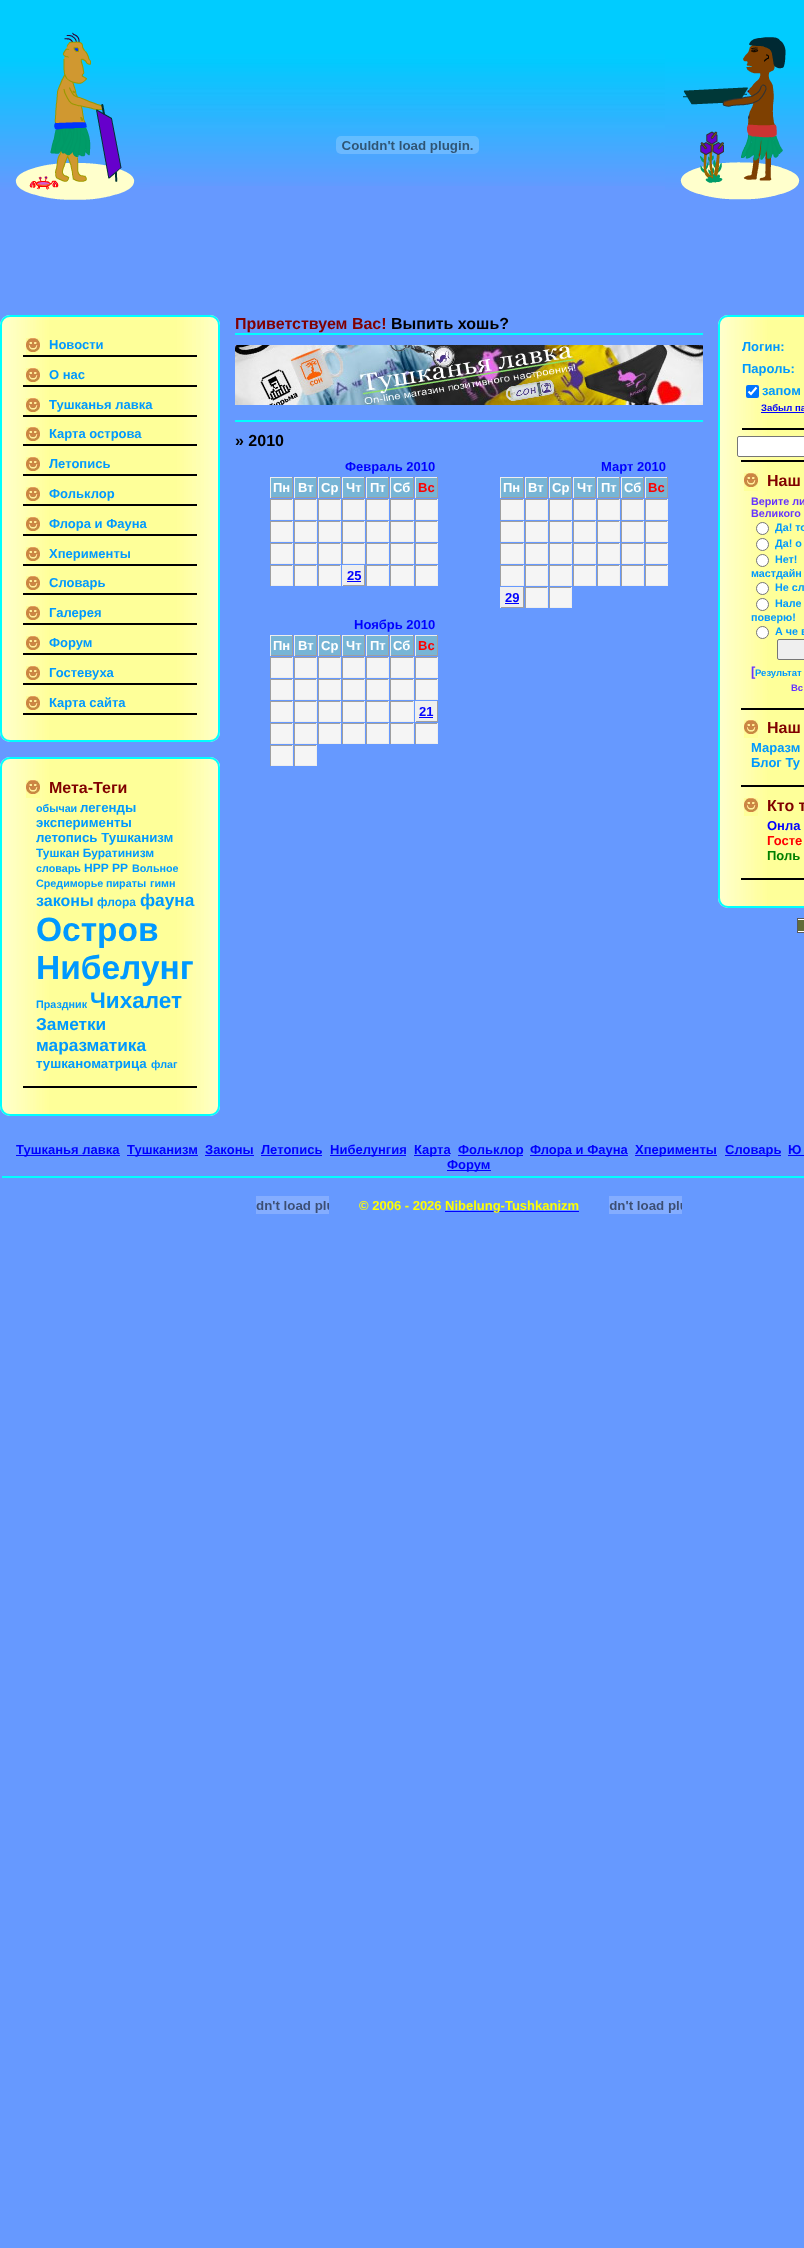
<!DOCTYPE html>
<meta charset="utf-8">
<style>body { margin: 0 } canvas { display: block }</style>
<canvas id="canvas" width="804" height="2248"></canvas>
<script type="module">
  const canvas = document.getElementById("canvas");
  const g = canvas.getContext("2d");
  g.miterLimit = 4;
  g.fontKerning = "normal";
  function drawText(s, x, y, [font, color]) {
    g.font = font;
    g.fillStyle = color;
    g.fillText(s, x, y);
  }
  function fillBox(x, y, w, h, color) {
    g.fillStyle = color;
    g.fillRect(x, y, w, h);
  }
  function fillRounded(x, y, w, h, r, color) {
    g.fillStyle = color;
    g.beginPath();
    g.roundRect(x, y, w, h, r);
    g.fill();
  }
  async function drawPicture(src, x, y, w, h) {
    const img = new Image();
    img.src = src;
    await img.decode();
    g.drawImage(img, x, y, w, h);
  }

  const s1 = ["bold 13px Liberation Sans", "#0099FF"];
  const s2 = ["bold 16px Liberation Sans", "#800000"];
  const s3 = ["bold 10.75px Liberation Sans", "#0099FF"];
  const s4 = ["bold 13.25px Liberation Sans", "#0099FF"];
  const s5 = ["bold 12px Liberation Sans", "#0099FF"];
  const s6 = ["bold 16px Liberation Sans", "#0099FF"];
  const s7 = ["bold 17.25px Liberation Sans", "#0099FF"];
  const s8 = ["bold 33.5px Liberation Sans", "#0099FF"];
  const s9 = ["bold 22.5px Liberation Sans", "#0099FF"];
  const s10 = ["bold 16px Liberation Sans", "#000000"];
  const s11 = ["bold 13px Liberation Sans", "#0000FF"];
  const s12 = ["bold 13px Liberation Sans", "#FFFFFF"];
  const s13 = ["bold 13px Liberation Sans", "#FF0000"];
  const s14 = ["bold 9.5px Liberation Sans", "#0000FF"];
  const s15 = ["bold 10.75px Liberation Sans", "#6633FF"];
  const s16 = ["bold 13px Liberation Sans", "#6633FF"];
  const s17 = ["bold 9.5px Liberation Sans", "#0099FF"];
  const s18 = ["bold 9.5px Liberation Sans", "#6633FF"];
  const s19 = ["bold 13px Liberation Sans", "#008000"];
  const s20 = ["bold 13px Liberation Sans", "#FFFF00"];

  fillBox(0, 0, 804, 2248, "#6699FF");
  await drawPicture("pic1.png", 0, 0, 150, 32);
  await drawPicture("pic2.png", 0, 32, 150, 168);
  await drawPicture("pic3.png", 150, 0, 515, 186);
  await drawPicture("pic4.png", 336, 136, 143, 18);
  await drawPicture("pic5.png", 665, 0, 139, 37);
  await drawPicture("pic6.png", 665, 37, 139, 163);
  await drawPicture("pic7.png", 0, 315, 220, 427);
  g.beginPath();
  g.roundRect(1, 316, 218, 425, 9);
  g.strokeStyle = "#00FFFF";
  g.lineWidth = 2;
  g.stroke();
  await drawPicture("pic8.png", 26, 338, 14, 17);
  fillBox(23, 355, 174, 2, "#000000");
  drawText("Новости", 49, 349, s1);
  await drawPicture("pic8.png", 26, 368, 14, 17);
  fillBox(23, 385, 174, 2, "#000000");
  drawText("О нас", 49, 379, s1);
  await drawPicture("pic8.png", 26, 398, 14, 17);
  fillBox(23, 415, 174, 2, "#000000");
  drawText("Тушканья лавка", 49, 409, s1);
  await drawPicture("pic8.png", 26, 427, 14, 17);
  fillBox(23, 444, 174, 2, "#000000");
  drawText("Карта острова", 49, 438, s1);
  await drawPicture("pic8.png", 26, 457, 14, 17);
  fillBox(23, 474, 174, 2, "#000000");
  drawText("Летопись", 49, 468, s1);
  await drawPicture("pic8.png", 26, 487, 14, 17);
  fillBox(23, 504, 174, 2, "#000000");
  drawText("Фольклор", 49, 498, s1);
  await drawPicture("pic8.png", 26, 517, 14, 17);
  fillBox(23, 534, 174, 2, "#000000");
  drawText("Флора и Фауна", 49, 528, s1);
  await drawPicture("pic8.png", 26, 547, 14, 17);
  fillBox(23, 564, 174, 2, "#000000");
  drawText("Хперименты", 49, 558, s1);
  await drawPicture("pic8.png", 26, 576, 14, 17);
  fillBox(23, 593, 174, 2, "#000000");
  drawText("Словарь", 49, 587, s1);
  await drawPicture("pic8.png", 26, 606, 14, 17);
  fillBox(23, 623, 174, 2, "#000000");
  drawText("Галерея", 49, 617, s1);
  await drawPicture("pic8.png", 26, 636, 14, 17);
  fillBox(23, 653, 174, 2, "#000000");
  drawText("Форум", 49, 647, s1);
  await drawPicture("pic8.png", 26, 666, 14, 17);
  fillBox(23, 683, 174, 2, "#000000");
  drawText("Гостевуха", 49, 677, s1);
  await drawPicture("pic8.png", 26, 696, 14, 17);
  fillBox(23, 713, 174, 2, "#000000");
  drawText("Карта сайта", 49, 707, s1);
  await drawPicture("pic9.png", 0, 757, 220, 359);
  g.beginPath();
  g.roundRect(1, 758, 218, 357, 9);
  g.stroke();
  await drawPicture("pic10.png", 26, 780, 14, 18);
  fillBox(23, 1086, 174, 2, "#000000");
  drawText("Мета-Теги", 49, 793, s2);
  drawText("обычаи", 36, 812, s3);
  drawText("легенды", 80, 812, s4);
  drawText("эксперименты", 36, 827, s4);
  drawText("летопись Тушканизм", 36, 842, s4);
  drawText("Тушкан Буратинизм", 36, 857, s5);
  drawText("словарь", 36, 872, s3);
  drawText("НРР", 84, 872, s5);
  drawText("РР", 112, 872, s5);
  drawText("Вольное", 132, 872, s3);
  drawText("Средиморье", 36, 887, s3);
  drawText("пираты", 106, 887, s3);
  drawText("гимн", 150, 887, s3);
  drawText("законы", 36, 906, s6);
  drawText("флора", 97, 906, s5);
  drawText("фауна", 140, 906, s7);
  drawText("Остров", 36, 941, s8);
  drawText("Нибелунг", 36, 979, s8);
  drawText("Праздник", 36, 1008, s3);
  drawText("Чихалет", 90, 1008, s9);
  drawText("Заметки", 36, 1030, s7);
  drawText("маразматика", 36, 1051, s7);
  drawText("тушканоматрица", 36, 1068, s4);
  drawText("флаг", 151, 1068, s3);
  drawText("Приветствуем Вас!", 235, 329, s2);
  drawText("Выпить хошь?", 391, 329, s10);
  fillBox(235, 333, 468, 2, "#00FFFF");
  await drawPicture("pic11.png", 235, 345, 468, 60);
  fillBox(235, 420, 468, 2, "#00FFFF");
  drawText("» 2010", 235, 446, s10);
  drawText("Февраль 2010", 345, 471, s11);
  fillBox(271, 478, 21, 19, "#77B5D6");
  fillBox(270, 477, 23, 1, "#EEEEEE");
  fillBox(292, 477, 1, 21, "#9F9F9F");
  fillBox(270, 497, 23, 1, "#9F9F9F");
  fillBox(270, 477, 1, 21, "#EEEEEE");
  drawText("Пн", 273, 492, s12);
  fillBox(295, 478, 21, 19, "#77B5D6");
  fillBox(294, 477, 23, 1, "#EEEEEE");
  fillBox(316, 477, 1, 21, "#9F9F9F");
  fillBox(294, 497, 23, 1, "#9F9F9F");
  fillBox(294, 477, 1, 21, "#EEEEEE");
  drawText("Вт", 298, 492, s12);
  fillBox(319, 478, 21, 19, "#77B5D6");
  fillBox(318, 477, 23, 1, "#EEEEEE");
  fillBox(340, 477, 1, 21, "#9F9F9F");
  fillBox(318, 497, 23, 1, "#9F9F9F");
  fillBox(318, 477, 1, 21, "#EEEEEE");
  drawText("Ср", 321, 492, s12);
  fillBox(343, 478, 21, 19, "#77B5D6");
  fillBox(342, 477, 23, 1, "#EEEEEE");
  fillBox(364, 477, 1, 21, "#9F9F9F");
  fillBox(342, 497, 23, 1, "#9F9F9F");
  fillBox(342, 477, 1, 21, "#EEEEEE");
  drawText("Чт", 346, 492, s12);
  fillBox(367, 478, 21, 19, "#77B5D6");
  fillBox(366, 477, 23, 1, "#EEEEEE");
  fillBox(388, 477, 1, 21, "#9F9F9F");
  fillBox(366, 497, 23, 1, "#9F9F9F");
  fillBox(366, 477, 1, 21, "#EEEEEE");
  drawText("Пт", 370, 492, s12);
  fillBox(391, 478, 22, 19, "#77B5D6");
  fillBox(390, 477, 24, 1, "#EEEEEE");
  fillBox(413, 477, 1, 21, "#9F9F9F");
  fillBox(390, 497, 24, 1, "#9F9F9F");
  fillBox(390, 477, 1, 21, "#EEEEEE");
  drawText("Сб", 393, 492, s12);
  fillBox(416, 478, 21, 19, "#77B5D6");
  fillBox(415, 477, 23, 1, "#EEEEEE");
  fillBox(437, 477, 1, 21, "#9F9F9F");
  fillBox(415, 497, 23, 1, "#9F9F9F");
  fillBox(415, 477, 1, 21, "#EEEEEE");
  drawText("Вс", 418, 492, s13);
  fillBox(271, 500, 21, 19, "#F5F5F5");
  fillBox(270, 499, 23, 1, "#9F9F9F");
  fillBox(292, 499, 1, 21, "#EEEEEE");
  fillBox(270, 519, 23, 1, "#EEEEEE");
  fillBox(270, 499, 1, 21, "#9F9F9F");
  fillBox(295, 500, 21, 19, "#F5F5F5");
  fillBox(294, 499, 23, 1, "#9F9F9F");
  fillBox(316, 499, 1, 21, "#EEEEEE");
  fillBox(294, 519, 23, 1, "#EEEEEE");
  fillBox(294, 499, 1, 21, "#9F9F9F");
  fillBox(319, 500, 21, 19, "#F5F5F5");
  fillBox(318, 499, 23, 1, "#9F9F9F");
  fillBox(340, 499, 1, 21, "#EEEEEE");
  fillBox(318, 519, 23, 1, "#EEEEEE");
  fillBox(318, 499, 1, 21, "#9F9F9F");
  fillBox(343, 500, 21, 19, "#F5F5F5");
  fillBox(342, 499, 23, 1, "#9F9F9F");
  fillBox(364, 499, 1, 21, "#EEEEEE");
  fillBox(342, 519, 23, 1, "#EEEEEE");
  fillBox(342, 499, 1, 21, "#9F9F9F");
  fillBox(367, 500, 21, 19, "#F5F5F5");
  fillBox(366, 499, 23, 1, "#9F9F9F");
  fillBox(388, 499, 1, 21, "#EEEEEE");
  fillBox(366, 519, 23, 1, "#EEEEEE");
  fillBox(366, 499, 1, 21, "#9F9F9F");
  fillBox(391, 500, 22, 19, "#F5F5F5");
  fillBox(390, 499, 24, 1, "#9F9F9F");
  fillBox(413, 499, 1, 21, "#EEEEEE");
  fillBox(390, 519, 24, 1, "#EEEEEE");
  fillBox(390, 499, 1, 21, "#9F9F9F");
  fillBox(416, 500, 21, 19, "#F5F5F5");
  fillBox(415, 499, 23, 1, "#9F9F9F");
  fillBox(437, 499, 1, 21, "#EEEEEE");
  fillBox(415, 519, 23, 1, "#EEEEEE");
  fillBox(415, 499, 1, 21, "#9F9F9F");
  fillBox(271, 522, 21, 19, "#F5F5F5");
  fillBox(270, 521, 23, 1, "#9F9F9F");
  fillBox(292, 521, 1, 21, "#EEEEEE");
  fillBox(270, 541, 23, 1, "#EEEEEE");
  fillBox(270, 521, 1, 21, "#9F9F9F");
  fillBox(295, 522, 21, 19, "#F5F5F5");
  fillBox(294, 521, 23, 1, "#9F9F9F");
  fillBox(316, 521, 1, 21, "#EEEEEE");
  fillBox(294, 541, 23, 1, "#EEEEEE");
  fillBox(294, 521, 1, 21, "#9F9F9F");
  fillBox(319, 522, 21, 19, "#F5F5F5");
  fillBox(318, 521, 23, 1, "#9F9F9F");
  fillBox(340, 521, 1, 21, "#EEEEEE");
  fillBox(318, 541, 23, 1, "#EEEEEE");
  fillBox(318, 521, 1, 21, "#9F9F9F");
  fillBox(343, 522, 21, 19, "#F5F5F5");
  fillBox(342, 521, 23, 1, "#9F9F9F");
  fillBox(364, 521, 1, 21, "#EEEEEE");
  fillBox(342, 541, 23, 1, "#EEEEEE");
  fillBox(342, 521, 1, 21, "#9F9F9F");
  fillBox(367, 522, 21, 19, "#F5F5F5");
  fillBox(366, 521, 23, 1, "#9F9F9F");
  fillBox(388, 521, 1, 21, "#EEEEEE");
  fillBox(366, 541, 23, 1, "#EEEEEE");
  fillBox(366, 521, 1, 21, "#9F9F9F");
  fillBox(391, 522, 22, 19, "#F5F5F5");
  fillBox(390, 521, 24, 1, "#9F9F9F");
  fillBox(413, 521, 1, 21, "#EEEEEE");
  fillBox(390, 541, 24, 1, "#EEEEEE");
  fillBox(390, 521, 1, 21, "#9F9F9F");
  fillBox(416, 522, 21, 19, "#F5F5F5");
  fillBox(415, 521, 23, 1, "#9F9F9F");
  fillBox(437, 521, 1, 21, "#EEEEEE");
  fillBox(415, 541, 23, 1, "#EEEEEE");
  fillBox(415, 521, 1, 21, "#9F9F9F");
  fillBox(271, 544, 21, 19, "#F5F5F5");
  fillBox(270, 543, 23, 1, "#9F9F9F");
  fillBox(292, 543, 1, 21, "#EEEEEE");
  fillBox(270, 563, 23, 1, "#EEEEEE");
  fillBox(270, 543, 1, 21, "#9F9F9F");
  fillBox(295, 544, 21, 19, "#F5F5F5");
  fillBox(294, 543, 23, 1, "#9F9F9F");
  fillBox(316, 543, 1, 21, "#EEEEEE");
  fillBox(294, 563, 23, 1, "#EEEEEE");
  fillBox(294, 543, 1, 21, "#9F9F9F");
  fillBox(319, 544, 21, 19, "#F5F5F5");
  fillBox(318, 543, 23, 1, "#9F9F9F");
  fillBox(340, 543, 1, 21, "#EEEEEE");
  fillBox(318, 563, 23, 1, "#EEEEEE");
  fillBox(318, 543, 1, 21, "#9F9F9F");
  fillBox(343, 544, 21, 19, "#F5F5F5");
  fillBox(342, 543, 23, 1, "#9F9F9F");
  fillBox(364, 543, 1, 21, "#EEEEEE");
  fillBox(342, 563, 23, 1, "#EEEEEE");
  fillBox(342, 543, 1, 21, "#9F9F9F");
  fillBox(367, 544, 21, 19, "#F5F5F5");
  fillBox(366, 543, 23, 1, "#9F9F9F");
  fillBox(388, 543, 1, 21, "#EEEEEE");
  fillBox(366, 563, 23, 1, "#EEEEEE");
  fillBox(366, 543, 1, 21, "#9F9F9F");
  fillBox(391, 544, 22, 19, "#F5F5F5");
  fillBox(390, 543, 24, 1, "#9F9F9F");
  fillBox(413, 543, 1, 21, "#EEEEEE");
  fillBox(390, 563, 24, 1, "#EEEEEE");
  fillBox(390, 543, 1, 21, "#9F9F9F");
  fillBox(416, 544, 21, 19, "#F5F5F5");
  fillBox(415, 543, 23, 1, "#9F9F9F");
  fillBox(437, 543, 1, 21, "#EEEEEE");
  fillBox(415, 563, 23, 1, "#EEEEEE");
  fillBox(415, 543, 1, 21, "#9F9F9F");
  fillBox(271, 566, 21, 19, "#F5F5F5");
  fillBox(270, 565, 23, 1, "#9F9F9F");
  fillBox(292, 565, 1, 21, "#EEEEEE");
  fillBox(270, 585, 23, 1, "#EEEEEE");
  fillBox(270, 565, 1, 21, "#9F9F9F");
  fillBox(295, 566, 21, 19, "#F5F5F5");
  fillBox(294, 565, 23, 1, "#9F9F9F");
  fillBox(316, 565, 1, 21, "#EEEEEE");
  fillBox(294, 585, 23, 1, "#EEEEEE");
  fillBox(294, 565, 1, 21, "#9F9F9F");
  fillBox(319, 566, 21, 19, "#F5F5F5");
  fillBox(318, 565, 23, 1, "#9F9F9F");
  fillBox(340, 565, 1, 21, "#EEEEEE");
  fillBox(318, 585, 23, 1, "#EEEEEE");
  fillBox(318, 565, 1, 21, "#9F9F9F");
  fillBox(343, 565, 21, 20, "#EFEFEF");
  fillBox(364, 565, 1, 21, "#9F9F9F");
  fillBox(342, 585, 23, 1, "#9F9F9F");
  fillBox(342, 565, 1, 21, "#EEEEEE");
  drawText("25", 347, 580, s11);
  fillBox(347, 581, 14, 1, "#0000FF");
  fillBox(367, 566, 21, 19, "#F5F5F5");
  fillBox(366, 565, 23, 1, "#9F9F9F");
  fillBox(388, 565, 1, 21, "#EEEEEE");
  fillBox(366, 585, 23, 1, "#EEEEEE");
  fillBox(366, 565, 1, 21, "#9F9F9F");
  fillBox(391, 566, 22, 19, "#F5F5F5");
  fillBox(390, 565, 24, 1, "#9F9F9F");
  fillBox(413, 565, 1, 21, "#EEEEEE");
  fillBox(390, 585, 24, 1, "#EEEEEE");
  fillBox(390, 565, 1, 21, "#9F9F9F");
  fillBox(416, 566, 21, 19, "#F5F5F5");
  fillBox(415, 565, 23, 1, "#9F9F9F");
  fillBox(437, 565, 1, 21, "#EEEEEE");
  fillBox(415, 585, 23, 1, "#EEEEEE");
  fillBox(415, 565, 1, 21, "#9F9F9F");
  drawText("Март 2010", 601, 471, s11);
  fillBox(501, 478, 22, 19, "#77B5D6");
  fillBox(500, 477, 24, 1, "#EEEEEE");
  fillBox(523, 477, 1, 21, "#9F9F9F");
  fillBox(500, 497, 24, 1, "#9F9F9F");
  fillBox(500, 477, 1, 21, "#EEEEEE");
  drawText("Пн", 503, 492, s12);
  fillBox(526, 478, 21, 19, "#77B5D6");
  fillBox(525, 477, 23, 1, "#EEEEEE");
  fillBox(547, 477, 1, 21, "#9F9F9F");
  fillBox(525, 497, 23, 1, "#9F9F9F");
  fillBox(525, 477, 1, 21, "#EEEEEE");
  drawText("Вт", 528, 492, s12);
  fillBox(550, 478, 21, 19, "#77B5D6");
  fillBox(549, 477, 23, 1, "#EEEEEE");
  fillBox(571, 477, 1, 21, "#9F9F9F");
  fillBox(549, 497, 23, 1, "#9F9F9F");
  fillBox(549, 477, 1, 21, "#EEEEEE");
  drawText("Ср", 552, 492, s12);
  fillBox(574, 478, 21, 19, "#77B5D6");
  fillBox(573, 477, 23, 1, "#EEEEEE");
  fillBox(595, 477, 1, 21, "#9F9F9F");
  fillBox(573, 497, 23, 1, "#9F9F9F");
  fillBox(573, 477, 1, 21, "#EEEEEE");
  drawText("Чт", 577, 492, s12);
  fillBox(598, 478, 21, 19, "#77B5D6");
  fillBox(597, 477, 23, 1, "#EEEEEE");
  fillBox(619, 477, 1, 21, "#9F9F9F");
  fillBox(597, 497, 23, 1, "#9F9F9F");
  fillBox(597, 477, 1, 21, "#EEEEEE");
  drawText("Пт", 601, 492, s12);
  fillBox(622, 478, 21, 19, "#77B5D6");
  fillBox(621, 477, 23, 1, "#EEEEEE");
  fillBox(643, 477, 1, 21, "#9F9F9F");
  fillBox(621, 497, 23, 1, "#9F9F9F");
  fillBox(621, 477, 1, 21, "#EEEEEE");
  drawText("Сб", 624, 492, s12);
  fillBox(646, 478, 21, 19, "#77B5D6");
  fillBox(645, 477, 23, 1, "#EEEEEE");
  fillBox(667, 477, 1, 21, "#9F9F9F");
  fillBox(645, 497, 23, 1, "#9F9F9F");
  fillBox(645, 477, 1, 21, "#EEEEEE");
  drawText("Вс", 648, 492, s13);
  fillBox(501, 500, 22, 19, "#F5F5F5");
  fillBox(500, 499, 24, 1, "#9F9F9F");
  fillBox(523, 499, 1, 21, "#EEEEEE");
  fillBox(500, 519, 24, 1, "#EEEEEE");
  fillBox(500, 499, 1, 21, "#9F9F9F");
  fillBox(526, 500, 21, 19, "#F5F5F5");
  fillBox(525, 499, 23, 1, "#9F9F9F");
  fillBox(547, 499, 1, 21, "#EEEEEE");
  fillBox(525, 519, 23, 1, "#EEEEEE");
  fillBox(525, 499, 1, 21, "#9F9F9F");
  fillBox(550, 500, 21, 19, "#F5F5F5");
  fillBox(549, 499, 23, 1, "#9F9F9F");
  fillBox(571, 499, 1, 21, "#EEEEEE");
  fillBox(549, 519, 23, 1, "#EEEEEE");
  fillBox(549, 499, 1, 21, "#9F9F9F");
  fillBox(574, 500, 21, 19, "#F5F5F5");
  fillBox(573, 499, 23, 1, "#9F9F9F");
  fillBox(595, 499, 1, 21, "#EEEEEE");
  fillBox(573, 519, 23, 1, "#EEEEEE");
  fillBox(573, 499, 1, 21, "#9F9F9F");
  fillBox(598, 500, 21, 19, "#F5F5F5");
  fillBox(597, 499, 23, 1, "#9F9F9F");
  fillBox(619, 499, 1, 21, "#EEEEEE");
  fillBox(597, 519, 23, 1, "#EEEEEE");
  fillBox(597, 499, 1, 21, "#9F9F9F");
  fillBox(622, 500, 21, 19, "#F5F5F5");
  fillBox(621, 499, 23, 1, "#9F9F9F");
  fillBox(643, 499, 1, 21, "#EEEEEE");
  fillBox(621, 519, 23, 1, "#EEEEEE");
  fillBox(621, 499, 1, 21, "#9F9F9F");
  fillBox(646, 500, 21, 19, "#F5F5F5");
  fillBox(645, 499, 23, 1, "#9F9F9F");
  fillBox(667, 499, 1, 21, "#EEEEEE");
  fillBox(645, 519, 23, 1, "#EEEEEE");
  fillBox(645, 499, 1, 21, "#9F9F9F");
  fillBox(501, 522, 22, 19, "#F5F5F5");
  fillBox(500, 521, 24, 1, "#9F9F9F");
  fillBox(523, 521, 1, 21, "#EEEEEE");
  fillBox(500, 541, 24, 1, "#EEEEEE");
  fillBox(500, 521, 1, 21, "#9F9F9F");
  fillBox(526, 522, 21, 19, "#F5F5F5");
  fillBox(525, 521, 23, 1, "#9F9F9F");
  fillBox(547, 521, 1, 21, "#EEEEEE");
  fillBox(525, 541, 23, 1, "#EEEEEE");
  fillBox(525, 521, 1, 21, "#9F9F9F");
  fillBox(550, 522, 21, 19, "#F5F5F5");
  fillBox(549, 521, 23, 1, "#9F9F9F");
  fillBox(571, 521, 1, 21, "#EEEEEE");
  fillBox(549, 541, 23, 1, "#EEEEEE");
  fillBox(549, 521, 1, 21, "#9F9F9F");
  fillBox(574, 522, 21, 19, "#F5F5F5");
  fillBox(573, 521, 23, 1, "#9F9F9F");
  fillBox(595, 521, 1, 21, "#EEEEEE");
  fillBox(573, 541, 23, 1, "#EEEEEE");
  fillBox(573, 521, 1, 21, "#9F9F9F");
  fillBox(598, 522, 21, 19, "#F5F5F5");
  fillBox(597, 521, 23, 1, "#9F9F9F");
  fillBox(619, 521, 1, 21, "#EEEEEE");
  fillBox(597, 541, 23, 1, "#EEEEEE");
  fillBox(597, 521, 1, 21, "#9F9F9F");
  fillBox(622, 522, 21, 19, "#F5F5F5");
  fillBox(621, 521, 23, 1, "#9F9F9F");
  fillBox(643, 521, 1, 21, "#EEEEEE");
  fillBox(621, 541, 23, 1, "#EEEEEE");
  fillBox(621, 521, 1, 21, "#9F9F9F");
  fillBox(646, 522, 21, 19, "#F5F5F5");
  fillBox(645, 521, 23, 1, "#9F9F9F");
  fillBox(667, 521, 1, 21, "#EEEEEE");
  fillBox(645, 541, 23, 1, "#EEEEEE");
  fillBox(645, 521, 1, 21, "#9F9F9F");
  fillBox(501, 544, 22, 19, "#F5F5F5");
  fillBox(500, 543, 24, 1, "#9F9F9F");
  fillBox(523, 543, 1, 21, "#EEEEEE");
  fillBox(500, 563, 24, 1, "#EEEEEE");
  fillBox(500, 543, 1, 21, "#9F9F9F");
  fillBox(526, 544, 21, 19, "#F5F5F5");
  fillBox(525, 543, 23, 1, "#9F9F9F");
  fillBox(547, 543, 1, 21, "#EEEEEE");
  fillBox(525, 563, 23, 1, "#EEEEEE");
  fillBox(525, 543, 1, 21, "#9F9F9F");
  fillBox(550, 544, 21, 19, "#F5F5F5");
  fillBox(549, 543, 23, 1, "#9F9F9F");
  fillBox(571, 543, 1, 21, "#EEEEEE");
  fillBox(549, 563, 23, 1, "#EEEEEE");
  fillBox(549, 543, 1, 21, "#9F9F9F");
  fillBox(574, 544, 21, 19, "#F5F5F5");
  fillBox(573, 543, 23, 1, "#9F9F9F");
  fillBox(595, 543, 1, 21, "#EEEEEE");
  fillBox(573, 563, 23, 1, "#EEEEEE");
  fillBox(573, 543, 1, 21, "#9F9F9F");
  fillBox(598, 544, 21, 19, "#F5F5F5");
  fillBox(597, 543, 23, 1, "#9F9F9F");
  fillBox(619, 543, 1, 21, "#EEEEEE");
  fillBox(597, 563, 23, 1, "#EEEEEE");
  fillBox(597, 543, 1, 21, "#9F9F9F");
  fillBox(622, 544, 21, 19, "#F5F5F5");
  fillBox(621, 543, 23, 1, "#9F9F9F");
  fillBox(643, 543, 1, 21, "#EEEEEE");
  fillBox(621, 563, 23, 1, "#EEEEEE");
  fillBox(621, 543, 1, 21, "#9F9F9F");
  fillBox(646, 544, 21, 19, "#F5F5F5");
  fillBox(645, 543, 23, 1, "#9F9F9F");
  fillBox(667, 543, 1, 21, "#EEEEEE");
  fillBox(645, 563, 23, 1, "#EEEEEE");
  fillBox(645, 543, 1, 21, "#9F9F9F");
  fillBox(501, 566, 22, 19, "#F5F5F5");
  fillBox(500, 565, 24, 1, "#9F9F9F");
  fillBox(523, 565, 1, 21, "#EEEEEE");
  fillBox(500, 585, 24, 1, "#EEEEEE");
  fillBox(500, 565, 1, 21, "#9F9F9F");
  fillBox(526, 566, 21, 19, "#F5F5F5");
  fillBox(525, 565, 23, 1, "#9F9F9F");
  fillBox(547, 565, 1, 21, "#EEEEEE");
  fillBox(525, 585, 23, 1, "#EEEEEE");
  fillBox(525, 565, 1, 21, "#9F9F9F");
  fillBox(550, 566, 21, 19, "#F5F5F5");
  fillBox(549, 565, 23, 1, "#9F9F9F");
  fillBox(571, 565, 1, 21, "#EEEEEE");
  fillBox(549, 585, 23, 1, "#EEEEEE");
  fillBox(549, 565, 1, 21, "#9F9F9F");
  fillBox(574, 566, 21, 19, "#F5F5F5");
  fillBox(573, 565, 23, 1, "#9F9F9F");
  fillBox(595, 565, 1, 21, "#EEEEEE");
  fillBox(573, 585, 23, 1, "#EEEEEE");
  fillBox(573, 565, 1, 21, "#9F9F9F");
  fillBox(598, 566, 21, 19, "#F5F5F5");
  fillBox(597, 565, 23, 1, "#9F9F9F");
  fillBox(619, 565, 1, 21, "#EEEEEE");
  fillBox(597, 585, 23, 1, "#EEEEEE");
  fillBox(597, 565, 1, 21, "#9F9F9F");
  fillBox(622, 566, 21, 19, "#F5F5F5");
  fillBox(621, 565, 23, 1, "#9F9F9F");
  fillBox(643, 565, 1, 21, "#EEEEEE");
  fillBox(621, 585, 23, 1, "#EEEEEE");
  fillBox(621, 565, 1, 21, "#9F9F9F");
  fillBox(646, 566, 21, 19, "#F5F5F5");
  fillBox(645, 565, 23, 1, "#9F9F9F");
  fillBox(667, 565, 1, 21, "#EEEEEE");
  fillBox(645, 585, 23, 1, "#EEEEEE");
  fillBox(645, 565, 1, 21, "#9F9F9F");
  fillBox(501, 587, 22, 20, "#EFEFEF");
  fillBox(523, 587, 1, 21, "#9F9F9F");
  fillBox(500, 607, 24, 1, "#9F9F9F");
  fillBox(500, 587, 1, 21, "#EEEEEE");
  drawText("29", 505, 602, s11);
  fillBox(505, 603, 14, 1, "#0000FF");
  fillBox(526, 588, 21, 19, "#F5F5F5");
  fillBox(525, 587, 23, 1, "#9F9F9F");
  fillBox(547, 587, 1, 21, "#EEEEEE");
  fillBox(525, 607, 23, 1, "#EEEEEE");
  fillBox(525, 587, 1, 21, "#9F9F9F");
  fillBox(550, 588, 21, 19, "#F5F5F5");
  fillBox(549, 587, 23, 1, "#9F9F9F");
  fillBox(571, 587, 1, 21, "#EEEEEE");
  fillBox(549, 607, 23, 1, "#EEEEEE");
  fillBox(549, 587, 1, 21, "#9F9F9F");
  drawText("Ноябрь 2010", 354, 629, s11);
  fillBox(271, 636, 21, 19, "#77B5D6");
  fillBox(270, 635, 23, 1, "#EEEEEE");
  fillBox(292, 635, 1, 21, "#9F9F9F");
  fillBox(270, 655, 23, 1, "#9F9F9F");
  fillBox(270, 635, 1, 21, "#EEEEEE");
  drawText("Пн", 273, 650, s12);
  fillBox(295, 636, 21, 19, "#77B5D6");
  fillBox(294, 635, 23, 1, "#EEEEEE");
  fillBox(316, 635, 1, 21, "#9F9F9F");
  fillBox(294, 655, 23, 1, "#9F9F9F");
  fillBox(294, 635, 1, 21, "#EEEEEE");
  drawText("Вт", 298, 650, s12);
  fillBox(319, 636, 21, 19, "#77B5D6");
  fillBox(318, 635, 23, 1, "#EEEEEE");
  fillBox(340, 635, 1, 21, "#9F9F9F");
  fillBox(318, 655, 23, 1, "#9F9F9F");
  fillBox(318, 635, 1, 21, "#EEEEEE");
  drawText("Ср", 321, 650, s12);
  fillBox(343, 636, 21, 19, "#77B5D6");
  fillBox(342, 635, 23, 1, "#EEEEEE");
  fillBox(364, 635, 1, 21, "#9F9F9F");
  fillBox(342, 655, 23, 1, "#9F9F9F");
  fillBox(342, 635, 1, 21, "#EEEEEE");
  drawText("Чт", 346, 650, s12);
  fillBox(367, 636, 21, 19, "#77B5D6");
  fillBox(366, 635, 23, 1, "#EEEEEE");
  fillBox(388, 635, 1, 21, "#9F9F9F");
  fillBox(366, 655, 23, 1, "#9F9F9F");
  fillBox(366, 635, 1, 21, "#EEEEEE");
  drawText("Пт", 370, 650, s12);
  fillBox(391, 636, 22, 19, "#77B5D6");
  fillBox(390, 635, 24, 1, "#EEEEEE");
  fillBox(413, 635, 1, 21, "#9F9F9F");
  fillBox(390, 655, 24, 1, "#9F9F9F");
  fillBox(390, 635, 1, 21, "#EEEEEE");
  drawText("Сб", 393, 650, s12);
  fillBox(416, 636, 21, 19, "#77B5D6");
  fillBox(415, 635, 23, 1, "#EEEEEE");
  fillBox(437, 635, 1, 21, "#9F9F9F");
  fillBox(415, 655, 23, 1, "#9F9F9F");
  fillBox(415, 635, 1, 21, "#EEEEEE");
  drawText("Вс", 418, 650, s13);
  fillBox(271, 658, 21, 19, "#F5F5F5");
  fillBox(270, 657, 23, 1, "#9F9F9F");
  fillBox(292, 657, 1, 21, "#EEEEEE");
  fillBox(270, 677, 23, 1, "#EEEEEE");
  fillBox(270, 657, 1, 21, "#9F9F9F");
  fillBox(295, 658, 21, 19, "#F5F5F5");
  fillBox(294, 657, 23, 1, "#9F9F9F");
  fillBox(316, 657, 1, 21, "#EEEEEE");
  fillBox(294, 677, 23, 1, "#EEEEEE");
  fillBox(294, 657, 1, 21, "#9F9F9F");
  fillBox(319, 658, 21, 19, "#F5F5F5");
  fillBox(318, 657, 23, 1, "#9F9F9F");
  fillBox(340, 657, 1, 21, "#EEEEEE");
  fillBox(318, 677, 23, 1, "#EEEEEE");
  fillBox(318, 657, 1, 21, "#9F9F9F");
  fillBox(343, 658, 21, 19, "#F5F5F5");
  fillBox(342, 657, 23, 1, "#9F9F9F");
  fillBox(364, 657, 1, 21, "#EEEEEE");
  fillBox(342, 677, 23, 1, "#EEEEEE");
  fillBox(342, 657, 1, 21, "#9F9F9F");
  fillBox(367, 658, 21, 19, "#F5F5F5");
  fillBox(366, 657, 23, 1, "#9F9F9F");
  fillBox(388, 657, 1, 21, "#EEEEEE");
  fillBox(366, 677, 23, 1, "#EEEEEE");
  fillBox(366, 657, 1, 21, "#9F9F9F");
  fillBox(391, 658, 22, 19, "#F5F5F5");
  fillBox(390, 657, 24, 1, "#9F9F9F");
  fillBox(413, 657, 1, 21, "#EEEEEE");
  fillBox(390, 677, 24, 1, "#EEEEEE");
  fillBox(390, 657, 1, 21, "#9F9F9F");
  fillBox(416, 658, 21, 19, "#F5F5F5");
  fillBox(415, 657, 23, 1, "#9F9F9F");
  fillBox(437, 657, 1, 21, "#EEEEEE");
  fillBox(415, 677, 23, 1, "#EEEEEE");
  fillBox(415, 657, 1, 21, "#9F9F9F");
  fillBox(271, 680, 21, 19, "#F5F5F5");
  fillBox(270, 679, 23, 1, "#9F9F9F");
  fillBox(292, 679, 1, 21, "#EEEEEE");
  fillBox(270, 699, 23, 1, "#EEEEEE");
  fillBox(270, 679, 1, 21, "#9F9F9F");
  fillBox(295, 680, 21, 19, "#F5F5F5");
  fillBox(294, 679, 23, 1, "#9F9F9F");
  fillBox(316, 679, 1, 21, "#EEEEEE");
  fillBox(294, 699, 23, 1, "#EEEEEE");
  fillBox(294, 679, 1, 21, "#9F9F9F");
  fillBox(319, 680, 21, 19, "#F5F5F5");
  fillBox(318, 679, 23, 1, "#9F9F9F");
  fillBox(340, 679, 1, 21, "#EEEEEE");
  fillBox(318, 699, 23, 1, "#EEEEEE");
  fillBox(318, 679, 1, 21, "#9F9F9F");
  fillBox(343, 680, 21, 19, "#F5F5F5");
  fillBox(342, 679, 23, 1, "#9F9F9F");
  fillBox(364, 679, 1, 21, "#EEEEEE");
  fillBox(342, 699, 23, 1, "#EEEEEE");
  fillBox(342, 679, 1, 21, "#9F9F9F");
  fillBox(367, 680, 21, 19, "#F5F5F5");
  fillBox(366, 679, 23, 1, "#9F9F9F");
  fillBox(388, 679, 1, 21, "#EEEEEE");
  fillBox(366, 699, 23, 1, "#EEEEEE");
  fillBox(366, 679, 1, 21, "#9F9F9F");
  fillBox(391, 680, 22, 19, "#F5F5F5");
  fillBox(390, 679, 24, 1, "#9F9F9F");
  fillBox(413, 679, 1, 21, "#EEEEEE");
  fillBox(390, 699, 24, 1, "#EEEEEE");
  fillBox(390, 679, 1, 21, "#9F9F9F");
  fillBox(416, 680, 21, 19, "#F5F5F5");
  fillBox(415, 679, 23, 1, "#9F9F9F");
  fillBox(437, 679, 1, 21, "#EEEEEE");
  fillBox(415, 699, 23, 1, "#EEEEEE");
  fillBox(415, 679, 1, 21, "#9F9F9F");
  fillBox(271, 702, 21, 19, "#F5F5F5");
  fillBox(270, 701, 23, 1, "#9F9F9F");
  fillBox(292, 701, 1, 21, "#EEEEEE");
  fillBox(270, 721, 23, 1, "#EEEEEE");
  fillBox(270, 701, 1, 21, "#9F9F9F");
  fillBox(295, 702, 21, 19, "#F5F5F5");
  fillBox(294, 701, 23, 1, "#9F9F9F");
  fillBox(316, 701, 1, 21, "#EEEEEE");
  fillBox(294, 721, 23, 1, "#EEEEEE");
  fillBox(294, 701, 1, 21, "#9F9F9F");
  fillBox(319, 702, 21, 19, "#F5F5F5");
  fillBox(318, 701, 23, 1, "#9F9F9F");
  fillBox(340, 701, 1, 21, "#EEEEEE");
  fillBox(318, 721, 23, 1, "#EEEEEE");
  fillBox(318, 701, 1, 21, "#9F9F9F");
  fillBox(343, 702, 21, 19, "#F5F5F5");
  fillBox(342, 701, 23, 1, "#9F9F9F");
  fillBox(364, 701, 1, 21, "#EEEEEE");
  fillBox(342, 721, 23, 1, "#EEEEEE");
  fillBox(342, 701, 1, 21, "#9F9F9F");
  fillBox(367, 702, 21, 19, "#F5F5F5");
  fillBox(366, 701, 23, 1, "#9F9F9F");
  fillBox(388, 701, 1, 21, "#EEEEEE");
  fillBox(366, 721, 23, 1, "#EEEEEE");
  fillBox(366, 701, 1, 21, "#9F9F9F");
  fillBox(391, 702, 22, 19, "#F5F5F5");
  fillBox(390, 701, 24, 1, "#9F9F9F");
  fillBox(413, 701, 1, 21, "#EEEEEE");
  fillBox(390, 721, 24, 1, "#EEEEEE");
  fillBox(390, 701, 1, 21, "#9F9F9F");
  fillBox(416, 701, 21, 20, "#EFEFEF");
  fillBox(437, 701, 1, 21, "#9F9F9F");
  fillBox(415, 721, 23, 1, "#9F9F9F");
  fillBox(415, 701, 1, 21, "#EEEEEE");
  drawText("21", 419, 716, s11);
  fillBox(419, 717, 14, 1, "#0000FF");
  fillBox(271, 724, 21, 19, "#F5F5F5");
  fillBox(270, 723, 23, 1, "#9F9F9F");
  fillBox(292, 723, 1, 21, "#EEEEEE");
  fillBox(270, 743, 23, 1, "#EEEEEE");
  fillBox(270, 723, 1, 21, "#9F9F9F");
  fillBox(295, 724, 21, 19, "#F5F5F5");
  fillBox(294, 723, 23, 1, "#9F9F9F");
  fillBox(316, 723, 1, 21, "#EEEEEE");
  fillBox(294, 743, 23, 1, "#EEEEEE");
  fillBox(294, 723, 1, 21, "#9F9F9F");
  fillBox(319, 724, 21, 19, "#F5F5F5");
  fillBox(318, 723, 23, 1, "#9F9F9F");
  fillBox(340, 723, 1, 21, "#EEEEEE");
  fillBox(318, 743, 23, 1, "#EEEEEE");
  fillBox(318, 723, 1, 21, "#9F9F9F");
  fillBox(343, 724, 21, 19, "#F5F5F5");
  fillBox(342, 723, 23, 1, "#9F9F9F");
  fillBox(364, 723, 1, 21, "#EEEEEE");
  fillBox(342, 743, 23, 1, "#EEEEEE");
  fillBox(342, 723, 1, 21, "#9F9F9F");
  fillBox(367, 724, 21, 19, "#F5F5F5");
  fillBox(366, 723, 23, 1, "#9F9F9F");
  fillBox(388, 723, 1, 21, "#EEEEEE");
  fillBox(366, 743, 23, 1, "#EEEEEE");
  fillBox(366, 723, 1, 21, "#9F9F9F");
  fillBox(391, 724, 22, 19, "#F5F5F5");
  fillBox(390, 723, 24, 1, "#9F9F9F");
  fillBox(413, 723, 1, 21, "#EEEEEE");
  fillBox(390, 743, 24, 1, "#EEEEEE");
  fillBox(390, 723, 1, 21, "#9F9F9F");
  fillBox(416, 724, 21, 19, "#F5F5F5");
  fillBox(415, 723, 23, 1, "#9F9F9F");
  fillBox(437, 723, 1, 21, "#EEEEEE");
  fillBox(415, 743, 23, 1, "#EEEEEE");
  fillBox(415, 723, 1, 21, "#9F9F9F");
  fillBox(271, 746, 21, 19, "#F5F5F5");
  fillBox(270, 745, 23, 1, "#9F9F9F");
  fillBox(292, 745, 1, 21, "#EEEEEE");
  fillBox(270, 765, 23, 1, "#EEEEEE");
  fillBox(270, 745, 1, 21, "#9F9F9F");
  fillBox(295, 746, 21, 19, "#F5F5F5");
  fillBox(294, 745, 23, 1, "#9F9F9F");
  fillBox(316, 745, 1, 21, "#EEEEEE");
  fillBox(294, 765, 23, 1, "#EEEEEE");
  fillBox(294, 745, 1, 21, "#9F9F9F");
  await drawPicture("pic12.png", 718, 315, 86, 593);
  g.beginPath();
  g.roundRect(719, 316, 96, 591, 9);
  g.stroke();
  drawText("Логин:", 742, 351, s1);
  drawText("Пароль:", 742, 373, s1);
  fillRounded(746, 385, 13, 13, 2, "#0075FF");
  g.beginPath();
  g.moveTo(748.5, 391.5);
  g.lineTo(751, 394);
  g.lineTo(756.5, 387.5);
  g.strokeStyle = "#FFFFFF";
  g.lineWidth = 2.1;
  g.stroke();
  drawText("запом", 762, 395, s1);
  drawText("Забыл па", 761, 411, s14);
  fillBox(761, 412, 43, 1, "#0000FF");
  fillBox(742, 428, 62, 2, "#000000");
  g.fillStyle = "#FFFFFF";
  g.beginPath();
  g.roundRect(737.5, 436.5, 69, 20, 1.5);
  g.fill();
  g.strokeStyle = "#767676";
  g.lineWidth = 1;
  g.stroke();
  fillBox(741, 460, 63, 2, "#000000");
  await drawPicture("pic10.png", 744, 473, 14, 18);
  fillBox(741, 708, 63, 2, "#000000");
  drawText("Наш", 767, 486, s2);
  drawText("Верите ли", 751, 505, s15);
  drawText("Великого", 751, 517, s15);
  g.fillStyle = "#FFFFFF";
  g.beginPath();
  g.arc(762.5, 528.5, 6, 0, Math.PI * 2);
  g.fill();
  g.stroke();
  drawText("Да! то", 775, 531, s3);
  g.fillStyle = "#FFFFFF";
  g.beginPath();
  g.arc(762.5, 544.5, 6, 0, Math.PI * 2);
  g.fill();
  g.stroke();
  drawText("Да! о", 775, 547, s3);
  g.fillStyle = "#FFFFFF";
  g.beginPath();
  g.arc(762.5, 560.5, 6, 0, Math.PI * 2);
  g.fill();
  g.stroke();
  drawText("Нет!", 775, 563, s3);
  drawText("мастдайн", 751, 577, s3);
  g.fillStyle = "#FFFFFF";
  g.beginPath();
  g.arc(762.5, 588.5, 6, 0, Math.PI * 2);
  g.fill();
  g.stroke();
  drawText("Не сл", 775, 591, s3);
  g.fillStyle = "#FFFFFF";
  g.beginPath();
  g.arc(762.5, 604.5, 6, 0, Math.PI * 2);
  g.fill();
  g.stroke();
  drawText("Нале", 775, 607, s3);
  drawText("поверю!", 751, 621, s3);
  g.fillStyle = "#FFFFFF";
  g.beginPath();
  g.arc(762.5, 632.5, 6, 0, Math.PI * 2);
  g.fill();
  g.stroke();
  drawText("А че в", 775, 635, s3);
  g.fillStyle = "#EFEFEF";
  g.beginPath();
  g.roundRect(777.5, 639.5, 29, 20, 1.5);
  g.fill();
  g.stroke();
  drawText("[", 751, 676, s16);
  drawText("Результат", 755, 676, s17);
  drawText("Вс", 791, 691, s18);
  await drawPicture("pic10.png", 744, 720, 14, 18);
  fillBox(741, 785, 63, 2, "#000000");
  drawText("Наш", 767, 733, s2);
  drawText("Маразм", 751, 752, s1);
  drawText("Блог Ту", 751, 767, s1);
  await drawPicture("pic10.png", 744, 798, 14, 18);
  fillBox(741, 878, 63, 2, "#000000");
  drawText("Кто т", 767, 811, s2);
  drawText("Онла", 767, 830, s11);
  drawText("Госте", 767, 845, s13);
  drawText("Поль", 767, 860, s19);
  await drawPicture("pic13.png", 797, 918, 7, 15);
  fillBox(16, 1155, 104, 1, "#0000FF");
  drawText("Тушканья лавка", 16, 1154, s11);
  fillBox(127, 1155, 71, 1, "#0000FF");
  drawText("Тушканизм", 127, 1154, s11);
  drawText("Законы", 205, 1154, s11);
  fillBox(205, 1155, 49, 1, "#0000FF");
  drawText("Летопись", 261, 1154, s11);
  fillBox(261, 1155, 61, 1, "#0000FF");
  fillBox(330, 1155, 76, 1, "#0000FF");
  drawText("Нибелунгия", 330, 1154, s11);
  fillBox(414, 1155, 36, 1, "#0000FF");
  drawText("Карта", 414, 1154, s11);
  fillBox(458, 1155, 65, 1, "#0000FF");
  drawText("Фольклор", 458, 1154, s11);
  fillBox(530, 1155, 98, 1, "#0000FF");
  drawText("Флора и Фауна", 530, 1154, s11);
  fillBox(635, 1155, 82, 1, "#0000FF");
  drawText("Хперименты", 635, 1154, s11);
  fillBox(725, 1155, 56, 1, "#0000FF");
  drawText("Словарь", 725, 1154, s11);
  drawText("Ю", 788, 1154, s11);
  fillBox(788, 1155, 16, 1, "#0000FF");
  fillBox(447, 1170, 44, 1, "#0000FF");
  drawText("Форум", 447, 1169, s11);
  fillBox(2, 1176, 802, 2, "#00FFFF");
  await drawPicture("pic14.png", 256, 1196, 73, 18);
  drawText("© 2006 - 2026", 359, 1210, s20);
  fillBox(445, 1211, 134, 1, "#0000FF");
  drawText("Nibelung-Tushkanizm", 445, 1210, s20);
  await drawPicture("pic15.png", 609, 1196, 73, 18);
</script>
